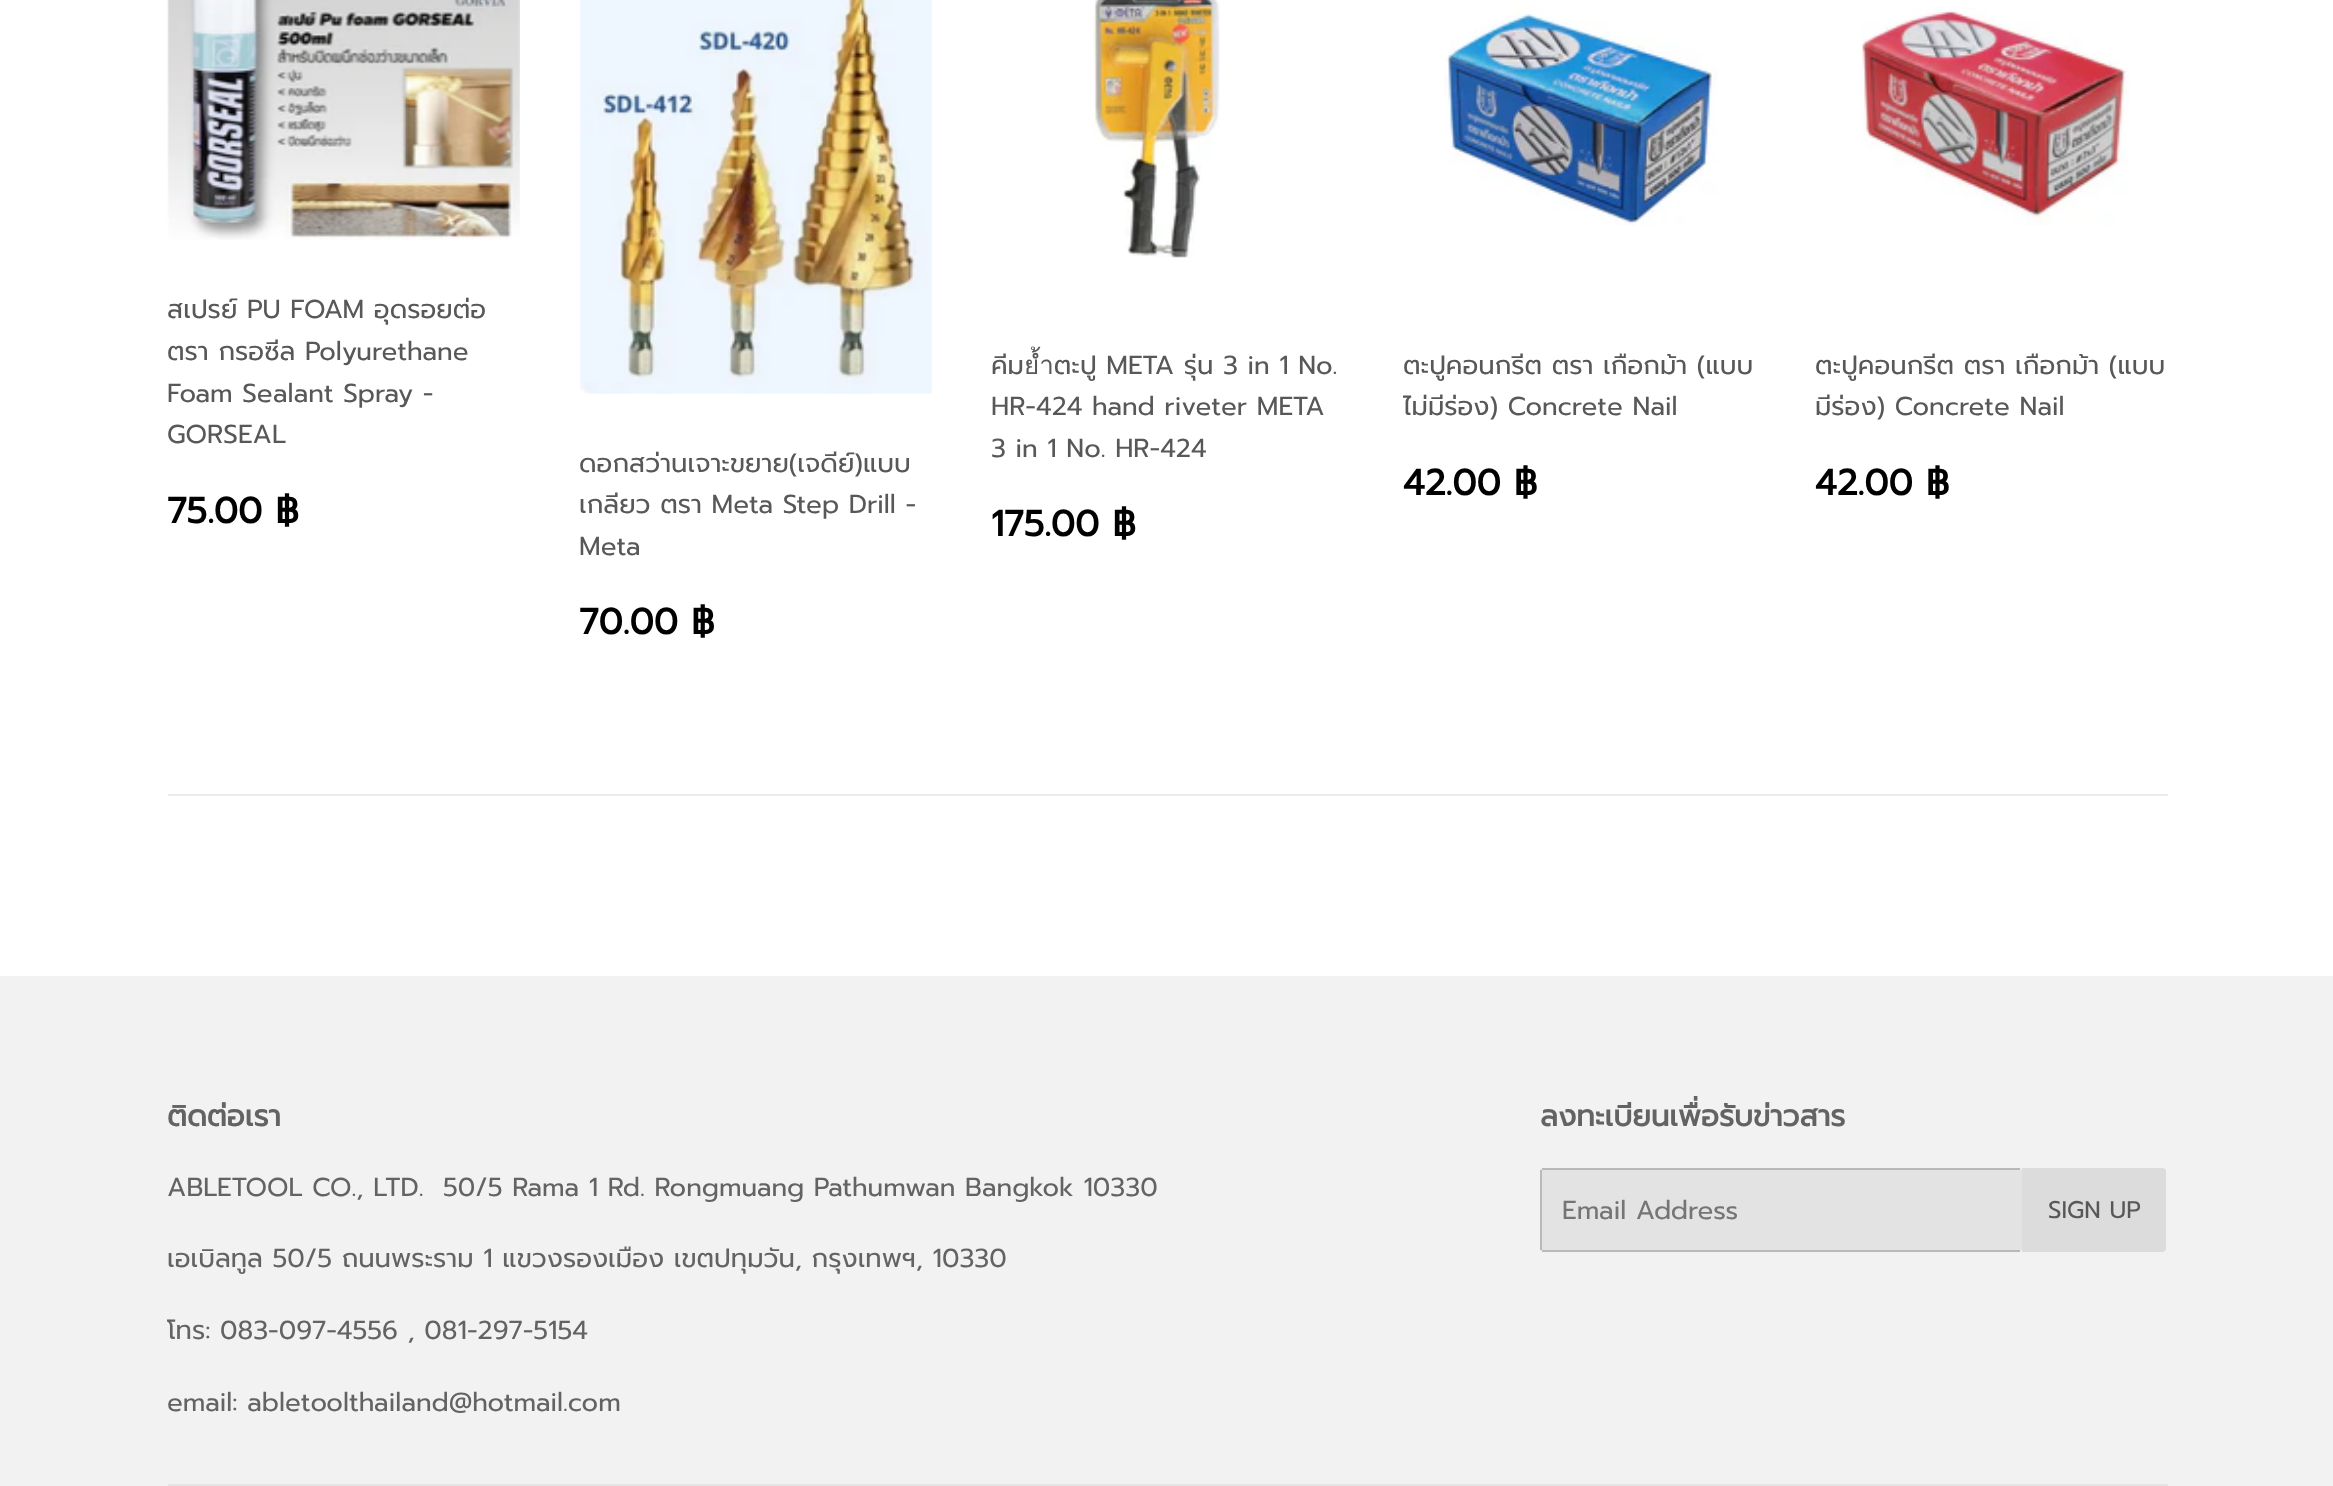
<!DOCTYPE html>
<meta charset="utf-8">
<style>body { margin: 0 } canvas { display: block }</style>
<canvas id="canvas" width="2333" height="1486"></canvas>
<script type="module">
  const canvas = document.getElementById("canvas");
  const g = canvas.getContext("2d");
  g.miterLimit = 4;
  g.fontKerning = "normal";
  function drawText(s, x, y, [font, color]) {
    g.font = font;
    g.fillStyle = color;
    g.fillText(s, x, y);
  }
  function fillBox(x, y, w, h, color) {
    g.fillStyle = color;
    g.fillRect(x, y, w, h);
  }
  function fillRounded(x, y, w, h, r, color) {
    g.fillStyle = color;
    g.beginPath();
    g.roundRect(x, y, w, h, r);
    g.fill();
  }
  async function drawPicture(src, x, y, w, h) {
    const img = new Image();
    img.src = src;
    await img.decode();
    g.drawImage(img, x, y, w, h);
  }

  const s1 = ["26px Prompt", "#585858"];
  const s2 = ["bold 36px Prompt", "#000000"];
  const s3 = ["bold 29.5px Prompt", "#636363"];
  const s4 = ["26px Prompt", "#636363"];
  const s5 = ["26px Prompt", "#757575"];
  const s6 = ["24px Prompt", "#585858"];

  fillBox(0, 0, 2333, 1486, "#FFFFFF");
  await drawPicture("pic1.png", 167, 0, 353, 240);
  drawText("สเปรย์ PU FOAM อุดรอยต่อ", 167, 318, s1);
  drawText("ตรา กรอซีล Polyurethane", 167, 360, s1);
  drawText("Foam Sealant Spray -", 167, 402, s1);
  drawText("GORSEAL", 167, 443, s1);
  drawText("75.00 ฿", 167, 523, s2);
  await drawPicture("pic2.png", 1093, 0, 127, 258);
  drawText("คีมย้ำตะปู META รุ่น 3 in 1 No.", 991, 374, s1);
  drawText("HR-424 hand riveter META", 991, 415, s1);
  drawText("3 in 1 No. HR-424", 991, 457, s1);
  drawText("175.00 ฿", 991, 536, s2);
  await drawPicture("pic3.png", 1444, 6, 274, 220);
  drawText("ตะปูคอนกรีต ตรา เกือกม้า (แบบ", 1403, 374, s1);
  drawText("ไม่มีร่อง) Concrete Nail", 1403, 415, s1);
  drawText("42.00 ฿", 1403, 495, s2);
  await drawPicture("pic4.png", 1861, 7, 268, 219);
  drawText("ตะปูคอนกรีต ตรา เกือกม้า (แบบ", 1815, 374, s1);
  drawText("มีร่อง) Concrete Nail", 1815, 415, s1);
  drawText("42.00 ฿", 1815, 495, s2);
  await drawPicture("pic5.png", 580, 0, 352, 394);
  drawText("ดอกสว่านเจาะขยาย(เจดีย์)แบบ", 579, 472, s1);
  drawText("เกลียว ตรา Meta Step Drill -", 579, 513, s1);
  drawText("Meta", 579, 555, s1);
  drawText("70.00 ฿", 579, 634, s2);
  fillBox(168, 794, 2000, 2, "#ECECEC");
  fillBox(0, 976, 2333, 510, "#F2F2F2");
  drawText("ติดต่อเรา", 167, 1126, s3);
  drawText("ABLETOOL CO., LTD.", 167, 1196, s4);
  drawText("50/5 Rama 1 Rd. Rongmuang Pathumwan Bangkok 10330", 443, 1196, s4);
  drawText("เอเบิลทูล 50/5 ถนนพระราม 1 แขวงรองเมือง เขตปทุมวัน, กรุงเทพฯ, 10330", 167, 1267, s4);
  drawText("โทร: 083-097-4556 , 081-297-5154", 167, 1339, s4);
  drawText("email: abletoolthailand@hotmail.com", 167, 1411, s4);
  drawText("ลงทะเบียนเพื่อรับข่าวสาร", 1540, 1126, s3);
  fillRounded(1540, 1168, 482, 84, 4, "#E3E3E3");
  fillBox(1542, 1168, 478, 2, "#B9B9B9");
  fillBox(1542, 1250, 478, 2, "#B9B9B9");
  fillBox(1540, 1170, 2, 80, "#B9B9B9");
  drawText("Email Address", 1562, 1219, s5);
  g.fillStyle = "#DCDCDC";
  g.beginPath();
  g.roundRect(2022, 1168, 144, 84, [0, 4, 4, 0]);
  g.fill();
  drawText("SIGN UP", 2048, 1218, s6);
  fillBox(168, 1484, 2000, 2, "#E5E5E5");
</script>
